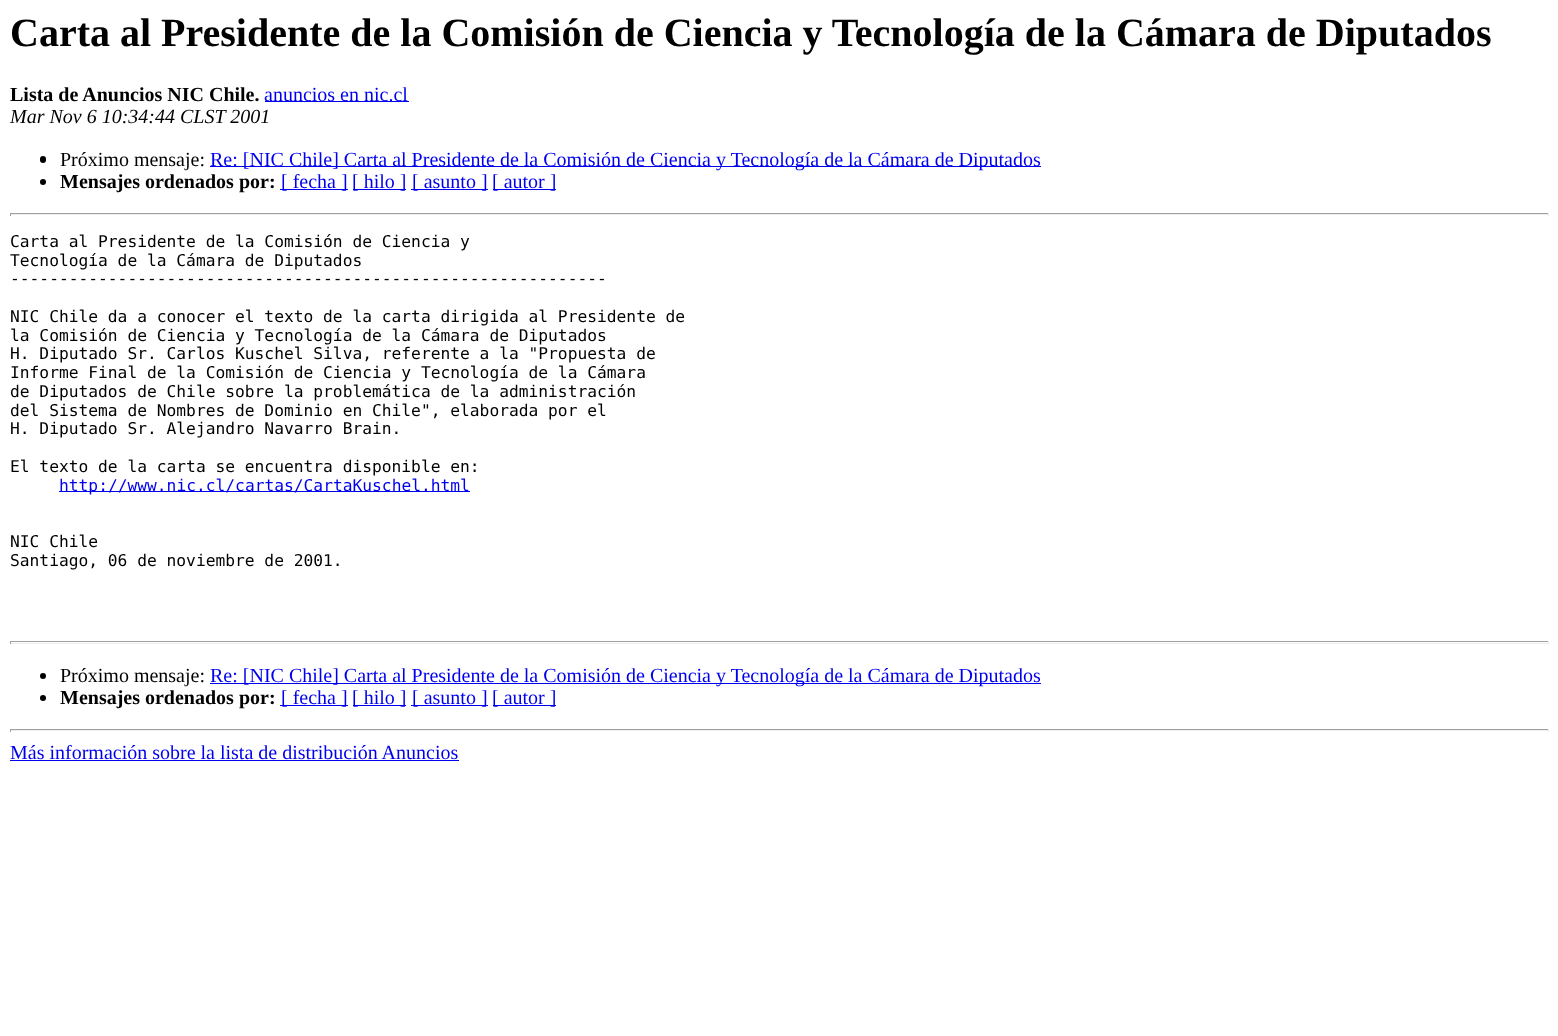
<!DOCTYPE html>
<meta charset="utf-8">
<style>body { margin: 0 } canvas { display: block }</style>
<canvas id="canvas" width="1558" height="1036"></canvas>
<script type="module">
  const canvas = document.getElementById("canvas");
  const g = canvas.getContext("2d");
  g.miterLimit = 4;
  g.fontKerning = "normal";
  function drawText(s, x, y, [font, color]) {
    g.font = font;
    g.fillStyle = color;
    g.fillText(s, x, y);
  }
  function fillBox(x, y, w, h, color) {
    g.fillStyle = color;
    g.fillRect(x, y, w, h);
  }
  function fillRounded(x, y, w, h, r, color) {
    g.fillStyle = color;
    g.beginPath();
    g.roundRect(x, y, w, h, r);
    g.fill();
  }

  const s1 = ["bold 40px Liberation Serif", "#000000"];
  const s2 = ["bold 20px Liberation Serif", "#000000"];
  const s3 = ["20px Liberation Serif", "#0000EE"];
  const s4 = ["italic 20px Liberation Serif", "#000000"];
  const s5 = ["20px Liberation Serif", "#000000"];
  const s6 = ["16.25px DejaVu Sans Mono", "#000000"];
  const s7 = ["16.25px DejaVu Sans Mono", "#0000EE"];

  fillBox(0, 0, 1558, 1036, "#FFFFFF");
  drawText("Carta al Presidente de la Comisión de Ciencia y Tecnología de la Cámara de Diputados", 10, 46, s1);
  drawText("Lista de Anuncios NIC Chile.", 10, 101, s2);
  fillBox(265, 101, 144, 1, "#0000EE");
  drawText("anuncios en nic.cl", 264, 101, s3);
  drawText("Mar Nov 6 10:34:44 CLST 2001", 10, 123, s4);
  fillRounded(40, 156, 6, 7, 3, "#000000");
  drawText("Próximo mensaje:", 60, 166, s5);
  fillBox(210, 166, 831, 1, "#0000EE");
  drawText("Re: [NIC Chile] Carta al Presidente de la Comisión de Ciencia y Tecnología de la Cámara de Diputados", 210, 166, s3);
  g.fillStyle = "#000000";
  g.beginPath();
  g.arc(43, 182, 3, 0, Math.PI * 2);
  g.fill();
  drawText("Mensajes ordenados por:", 60, 188, s2);
  fillBox(280, 189, 68, 1, "#0000EE");
  drawText("[ fecha ]", 281, 188, s3);
  fillBox(353, 189, 53, 1, "#0000EE");
  drawText("[ hilo ]", 352, 188, s3);
  fillBox(411, 189, 77, 1, "#0000EE");
  drawText("[ asunto ]", 412, 188, s3);
  fillBox(493, 189, 63, 1, "#0000EE");
  drawText("[ autor ]", 492, 188, s3);
  fillBox(10, 213, 1539, 1, "#9F9F9F");
  fillBox(1548, 213, 1, 3, "#EEEEEE");
  fillBox(10, 214, 1539, 1, "#EEEEEE");
  fillBox(10, 213, 1, 3, "#9F9F9F");
  drawText("Carta al Presidente de la Comisión de Ciencia y", 10, 247, s6);
  drawText("Tecnología de la Cámara de Diputados", 10, 266, s6);
  drawText("-------------------------------------------------------------", 10, 284, s6);
  drawText("NIC Chile da a conocer el texto de la carta dirigida al Presidente de", 10, 322, s6);
  drawText("la Comisión de Ciencia y Tecnología de la Cámara de Diputados", 10, 341, s6);
  drawText("H. Diputado Sr. Carlos Kuschel Silva, referente a la \"Propuesta de", 10, 359, s6);
  drawText("Informe Final de la Comisión de Ciencia y Tecnología de la Cámara", 10, 378, s6);
  drawText("de Diputados de Chile sobre la problemática de la administración", 10, 397, s6);
  drawText("del Sistema de Nombres de Dominio en Chile\", elaborada por el", 10, 416, s6);
  drawText("H. Diputado Sr. Alejandro Navarro Brain.", 10, 434, s6);
  drawText("El texto de la carta se encuentra disponible en:", 10, 472, s6);
  fillBox(59, 491, 411, 1, "#0000EE");
  drawText("http://www.nic.cl/cartas/CartaKuschel.html", 59, 491, s7);
  drawText("NIC Chile", 10, 547, s6);
  drawText("Santiago, 06 de noviembre de 2001.", 10, 566, s6);
  fillBox(10, 641, 1539, 1, "#9F9F9F");
  fillBox(1548, 641, 1, 3, "#EEEEEE");
  fillBox(10, 643, 1539, 1, "#EEEEEE");
  fillBox(10, 641, 1, 3, "#9F9F9F");
  g.fillStyle = "#000000";
  g.beginPath();
  g.arc(43, 676, 3, 0, Math.PI * 2);
  g.fill();
  drawText("Próximo mensaje:", 60, 682, s5);
  fillBox(210, 683, 831, 1, "#0000EE");
  drawText("Re: [NIC Chile] Carta al Presidente de la Comisión de Ciencia y Tecnología de la Cámara de Diputados", 210, 682, s3);
  g.fillStyle = "#000000";
  g.beginPath();
  g.arc(43, 698, 3, 0, Math.PI * 2);
  g.fill();
  drawText("Mensajes ordenados por:", 60, 704, s2);
  fillBox(280, 705, 68, 1, "#0000EE");
  drawText("[ fecha ]", 281, 704, s3);
  fillBox(353, 705, 53, 1, "#0000EE");
  drawText("[ hilo ]", 352, 704, s3);
  fillBox(411, 705, 77, 1, "#0000EE");
  drawText("[ asunto ]", 412, 704, s3);
  fillBox(493, 705, 63, 1, "#0000EE");
  drawText("[ autor ]", 492, 704, s3);
  fillBox(10, 729, 1539, 1, "#9F9F9F");
  fillBox(1548, 729, 1, 3, "#EEEEEE");
  fillBox(10, 730, 1539, 1, "#EEEEEE");
  fillBox(10, 729, 1, 3, "#9F9F9F");
  drawText("Más información sobre la lista de distribución Anuncios", 10, 759, s3);
  fillBox(10, 760, 449, 1, "#0000EE");
</script>
